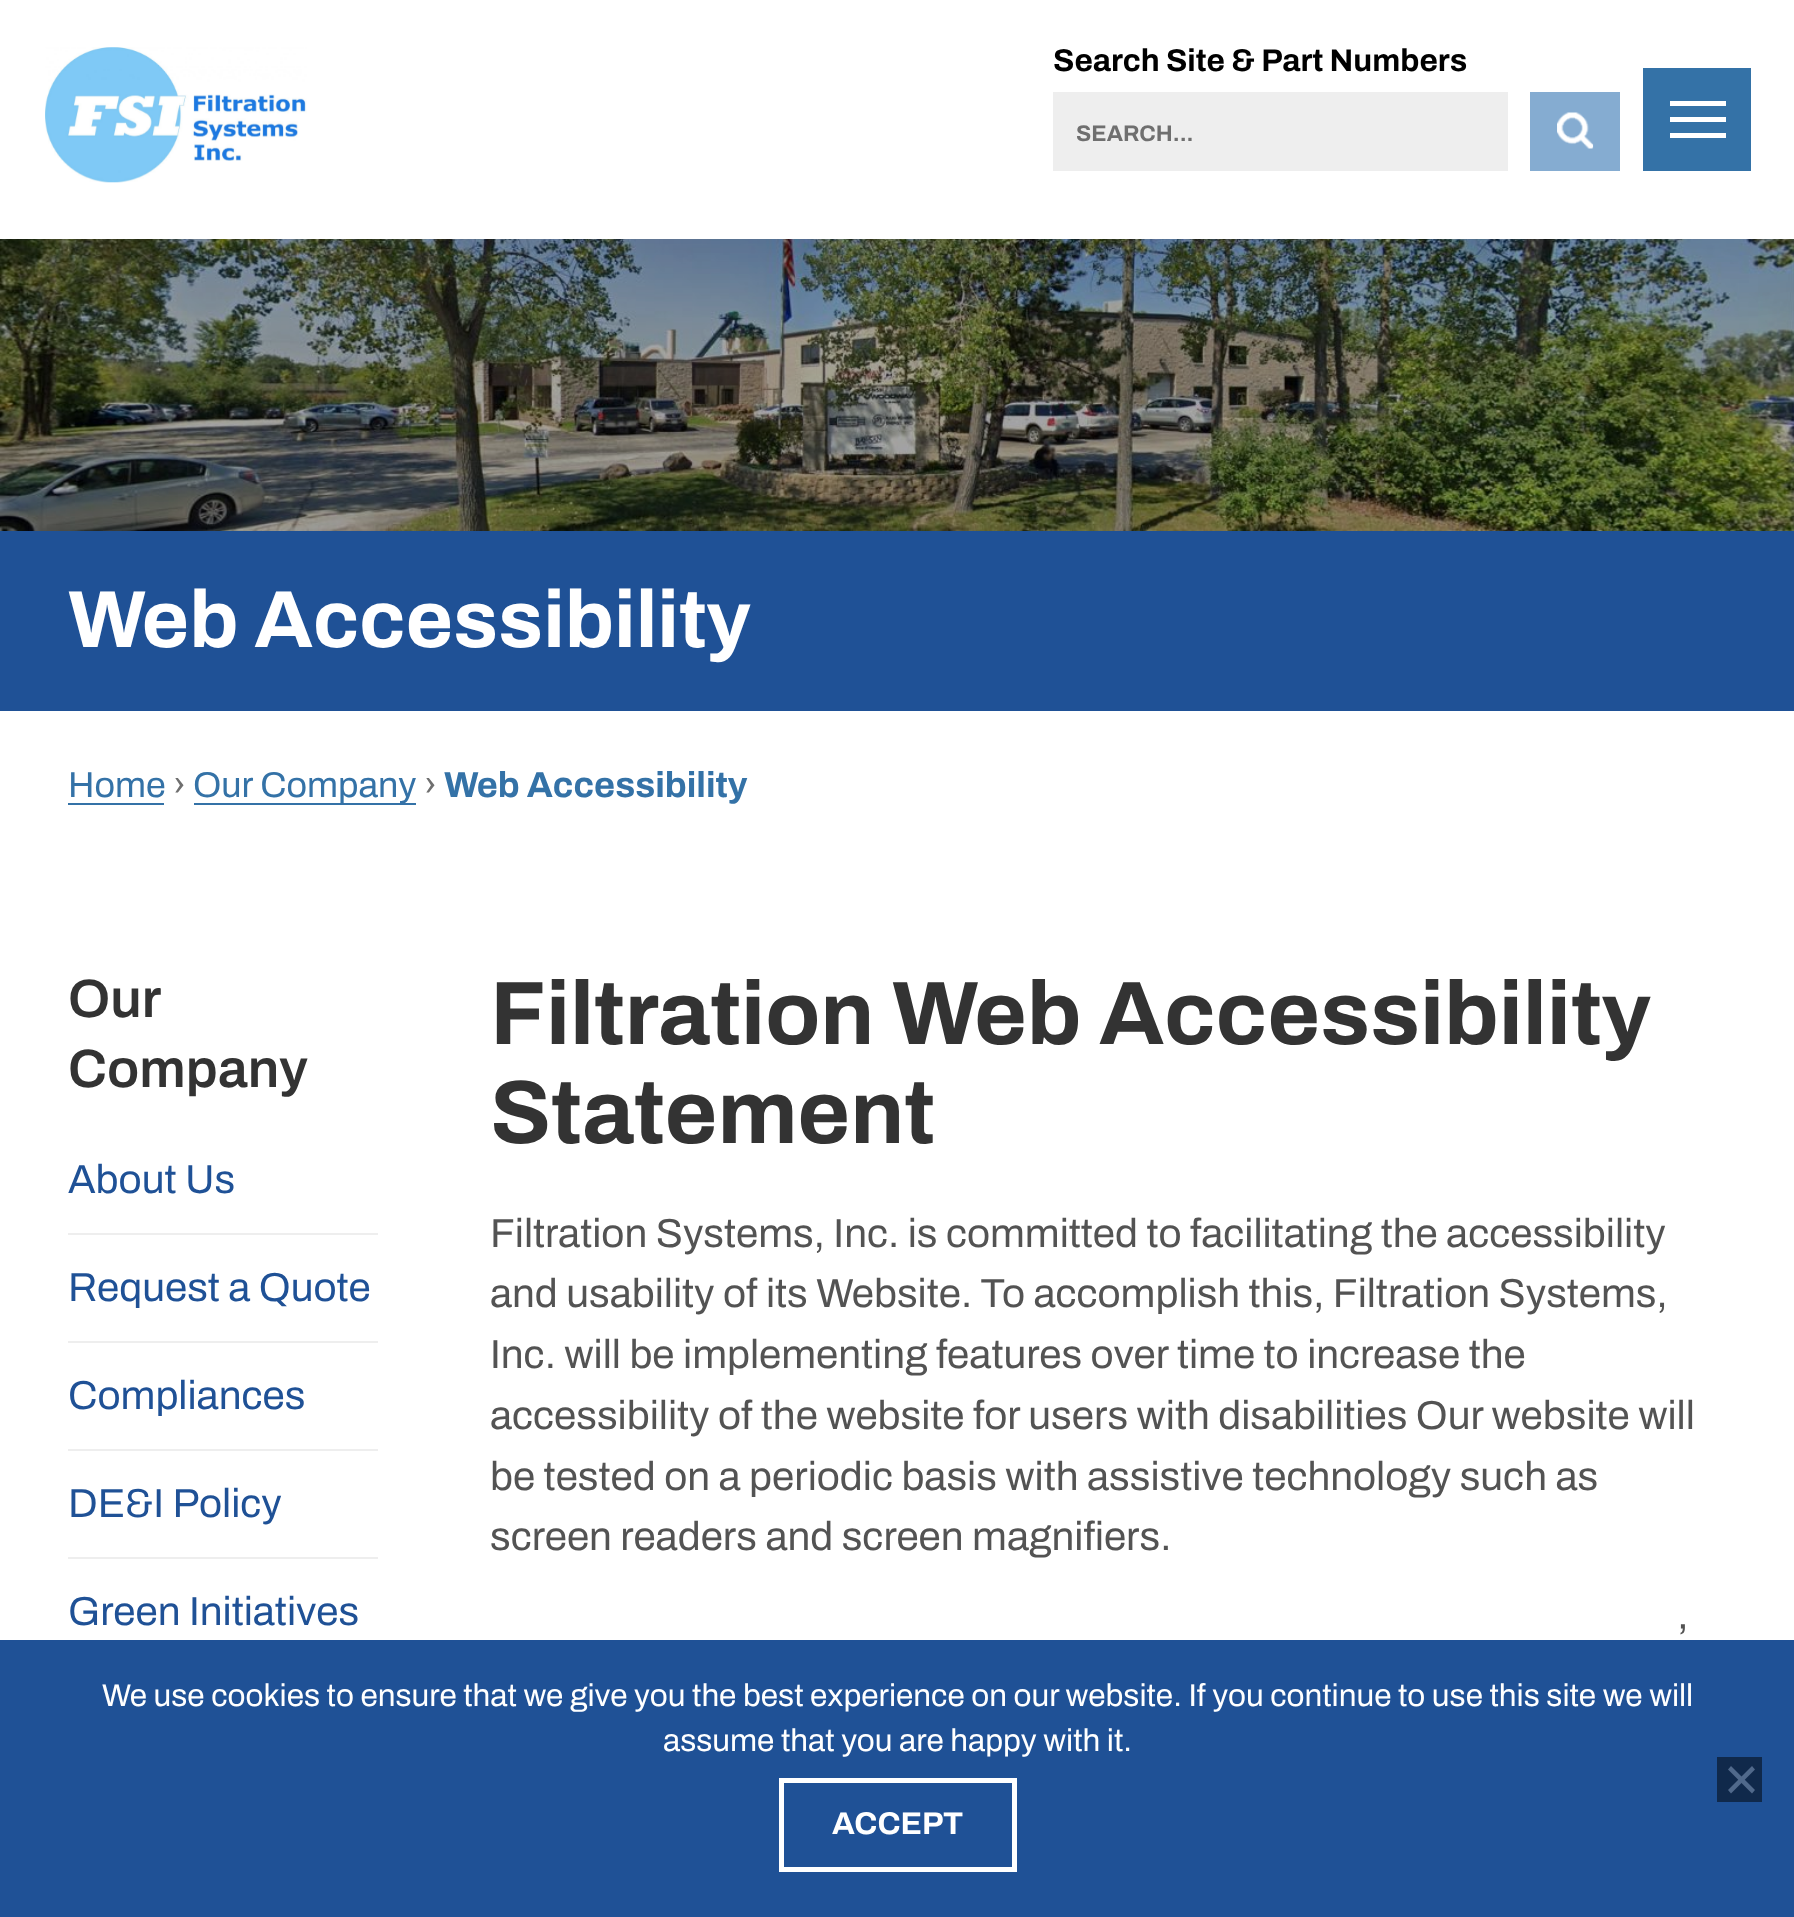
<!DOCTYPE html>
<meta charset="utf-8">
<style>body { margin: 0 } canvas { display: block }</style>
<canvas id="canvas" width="1794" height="1917"></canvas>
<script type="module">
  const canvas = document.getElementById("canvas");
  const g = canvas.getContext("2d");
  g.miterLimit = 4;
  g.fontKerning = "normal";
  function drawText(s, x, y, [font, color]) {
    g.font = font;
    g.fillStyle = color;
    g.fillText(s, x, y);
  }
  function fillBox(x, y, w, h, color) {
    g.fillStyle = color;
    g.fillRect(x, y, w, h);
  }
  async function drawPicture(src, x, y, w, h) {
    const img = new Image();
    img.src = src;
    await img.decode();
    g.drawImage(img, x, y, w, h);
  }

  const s1 = ["bold 31.5px Archivo", "#000000"];
  const s2 = ["bold 22.5px Archivo", "#6F6F6F"];
  const s3 = ["bold 81px Archivo", "#FFFFFF"];
  const s4 = ["36px Archivo", "#3472A7"];
  const s5 = ["36px Archivo", "#6F6F6F"];
  const s6 = ["bold 36px Archivo", "#3472A7"];
  const s7 = ["600 54px Archivo", "#333333"];
  const s8 = ["40.5px Archivo", "#1F5196"];
  const s9 = ["bold 90px Archivo", "#333333"];
  const s10 = ["40.5px Archivo", "#535353"];
  const s11 = ["31.5px Archivo", "#FFFFFF"];
  const s12 = ["bold 31.5px Archivo", "#FFFFFF"];

  fillBox(0, 0, 1794, 1917, "#FFFFFF");
  await drawPicture("pic3.png", 0, 239, 1794, 292);
  g.fillStyle = "rgba(0, 0, 0, 0.11)";
  g.filter = "blur(45px)";
  g.beginPath();
  g.rect(16, -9, 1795, 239);
  g.fill();
  g.filter = "none";
  fillBox(0, 0, 1794, 239, "#FFFFFF");
  await drawPicture("pic1.png", 45, 47, 262, 136);
  drawText("Search Site & Part Numbers", 1053, 71, s1);
  fillBox(1053, 92, 455, 79, "#EEEEEE");
  drawText("SEARCH...", 1076, 141, s2);
  fillBox(1530, 92, 90, 79, "#85ACD1");
  await drawPicture("pic2.png", 1557, 112, 37, 37);
  fillBox(1643, 68, 108, 103, "#3472A7");
  fillBox(1670, 101, 56, 5, "#FFFFFF");
  fillBox(1670, 117, 56, 5, "#FFFFFF");
  fillBox(1670, 133, 56, 5, "#FFFFFF");
  fillBox(0, 531, 1794, 180, "#1F5196");
  drawText("Web Accessibility", 68, 647, s3);
  drawText("Home", 68, 797, s4);
  fillBox(68, 803, 96, 2, "#3472A7");
  drawText("›", 173, 797, s5);
  fillBox(194, 803, 222, 2, "#3472A7");
  drawText("Our Company", 193, 797, s4);
  drawText("›", 424, 797, s5);
  drawText("Web Accessibility", 444, 797, s6);
  drawText("Our", 68, 1017, s7);
  drawText("Company", 68, 1087, s7);
  fillBox(68, 1233, 310, 2, "#EEEEEE");
  drawText("About Us", 68, 1193, s8);
  fillBox(68, 1341, 310, 2, "#EEEEEE");
  drawText("Request a Quote", 68, 1301, s8);
  fillBox(68, 1449, 310, 2, "#EEEEEE");
  drawText("Compliances", 68, 1409, s8);
  fillBox(68, 1557, 310, 2, "#EEEEEE");
  drawText("DE&I Policy", 68, 1517, s8);
  drawText("Green Initiatives", 68, 1625, s8);
  drawText("Filtration Web Accessibility", 490, 1044, s9);
  drawText("Statement", 490, 1143, s9);
  drawText("Filtration Systems, Inc. is committed to facilitating the accessibility", 490, 1247, s10);
  drawText("and usability of its Website. To accomplish this, Filtration Systems,", 490, 1307, s10);
  drawText("Inc. will be implementing features over time to increase the", 490, 1368, s10);
  drawText("accessibility of the website for users with disabilities Our website will", 490, 1429, s10);
  drawText("be tested on a periodic basis with assistive technology such as", 490, 1490, s10);
  drawText("screen readers and screen magnifiers.", 490, 1550, s10);
  drawText("’", 1678, 1652, s10);
  fillBox(0, 1640, 1794, 277, "#1F5196");
  drawText("We use cookies to ensure that we give you the best experience on our website. If you continue to use this site we will", 102, 1706, s11);
  drawText("assume that you are happy with it.", 663, 1751, s11);
  fillBox(1717, 1757, 45, 45, "#10294B");
  g.fillStyle = "#50698B";
  g.beginPath();
  g.moveTo(1752, 1766);
  g.lineTo(1755, 1769.5);
  g.lineTo(1731, 1793.5);
  g.lineTo(1728, 1790);
  g.closePath();
  g.fill();
  g.beginPath();
  g.moveTo(1728, 1769.5);
  g.lineTo(1731, 1766);
  g.lineTo(1755, 1790);
  g.lineTo(1752, 1793.5);
  g.closePath();
  g.fill();
  g.strokeStyle = "#FFFFFF";
  g.lineWidth = 5;
  g.strokeRect(781.5, 1780.5, 233, 89);
  drawText("ACCEPT", 832, 1834, s12);
</script>
